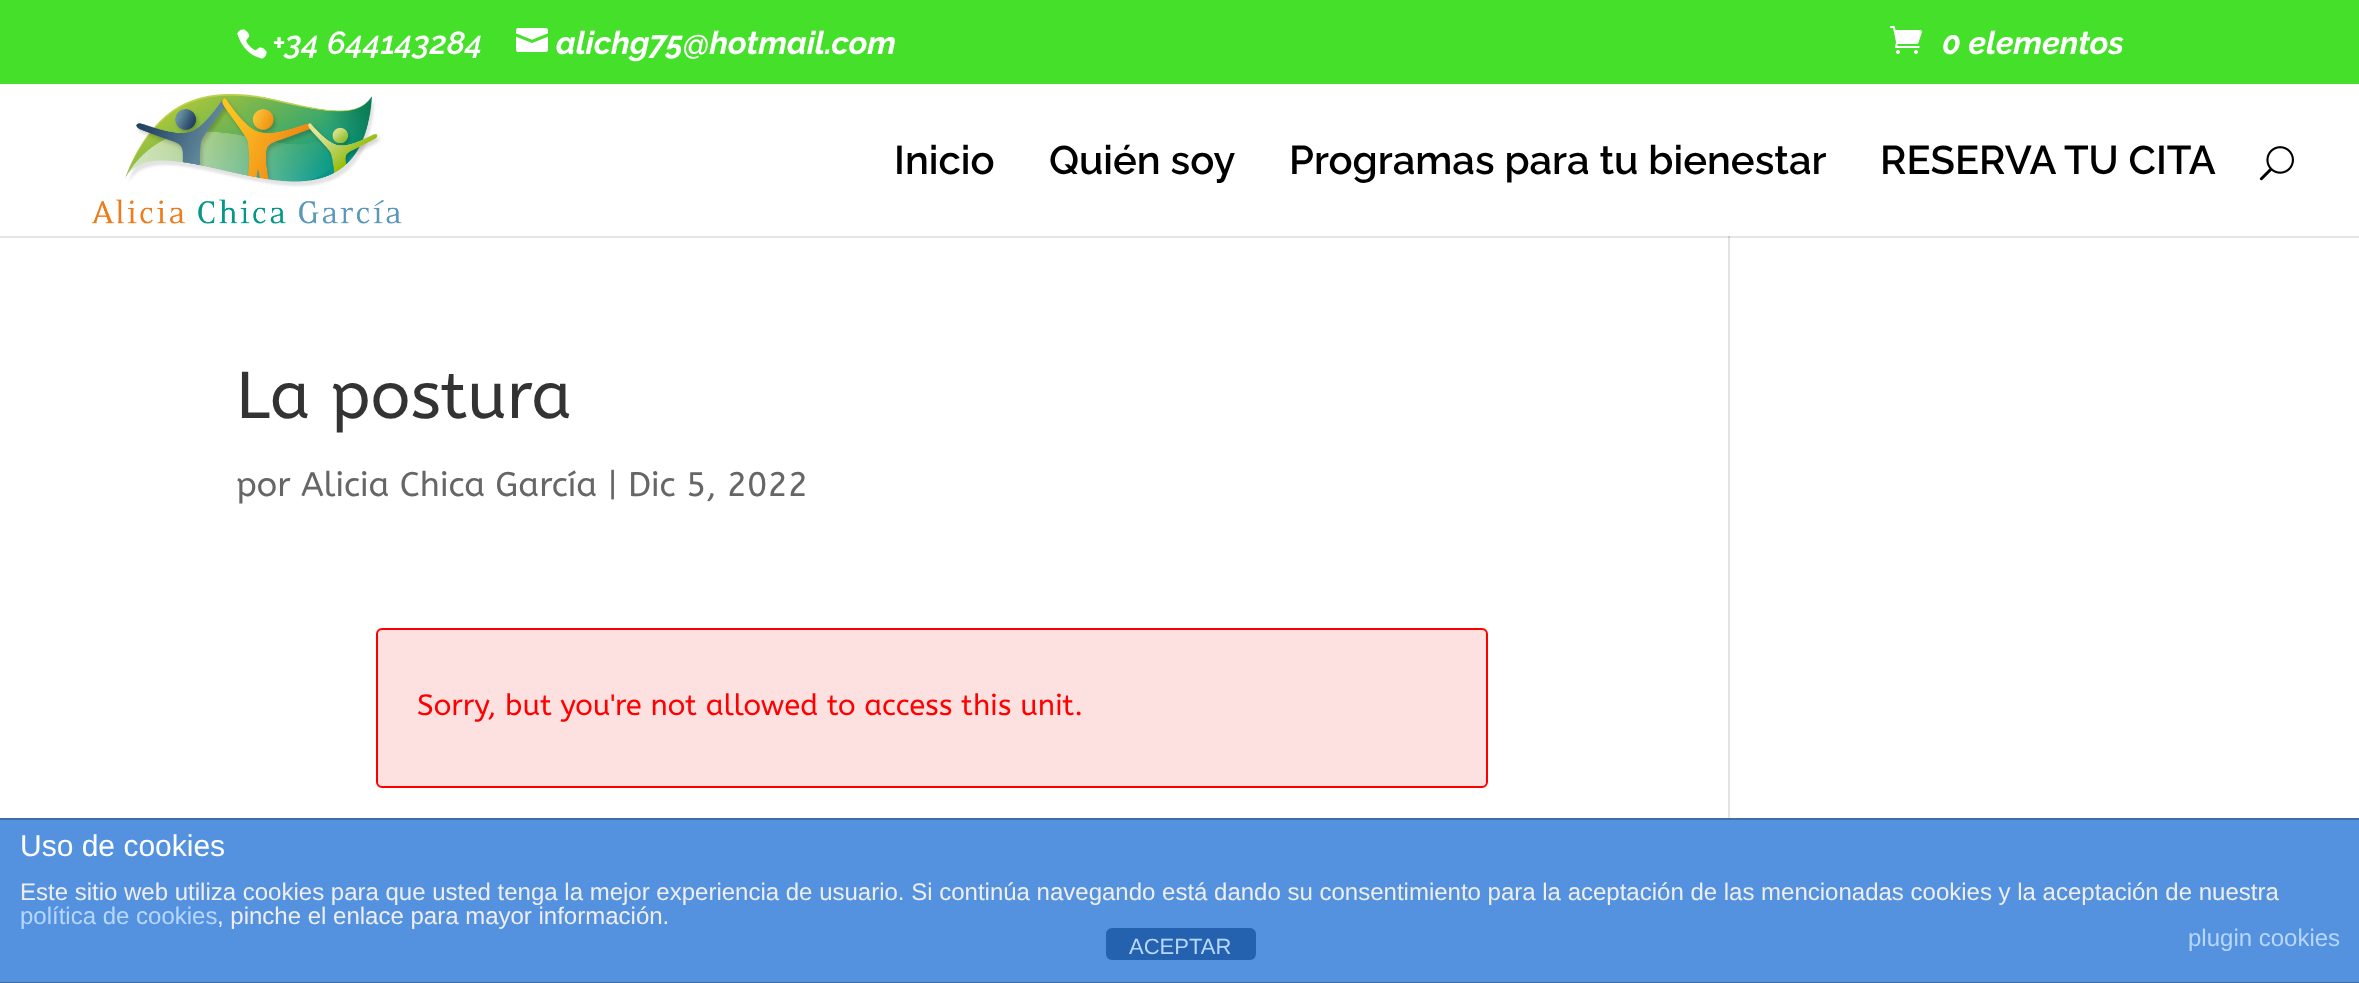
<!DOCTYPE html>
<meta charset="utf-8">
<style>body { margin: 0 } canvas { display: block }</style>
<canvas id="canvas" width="2359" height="983"></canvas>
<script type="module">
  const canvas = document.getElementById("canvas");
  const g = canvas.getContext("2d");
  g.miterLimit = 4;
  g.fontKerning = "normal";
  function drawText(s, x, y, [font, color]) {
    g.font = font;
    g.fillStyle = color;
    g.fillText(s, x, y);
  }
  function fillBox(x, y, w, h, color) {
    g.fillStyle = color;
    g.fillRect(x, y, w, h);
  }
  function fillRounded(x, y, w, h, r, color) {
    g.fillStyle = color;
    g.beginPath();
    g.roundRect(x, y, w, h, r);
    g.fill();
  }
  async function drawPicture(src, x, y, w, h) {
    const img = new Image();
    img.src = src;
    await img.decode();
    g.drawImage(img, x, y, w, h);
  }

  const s1 = ["italic 100 32px 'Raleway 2'", "#FFFFFF"];
  const s2 = ["italic 100 32px Raleway", "#FFFFFF"];
  const s3 = ["100 40px Raleway", "#000000"];
  const s4 = ["66px ABeeZee", "#333333"];
  const s5 = ["34px ABeeZee", "#666666"];
  const s6 = ["29.3px ABeeZee", "#FF0000"];
  const s7 = ["30px Liberation Sans", "#FFFFFF"];
  const s8 = ["24px Liberation Sans", "#EEEEEE"];
  const s9 = ["24px Liberation Sans", "#B7D7FF"];
  const s10 = ["22px Liberation Sans", "#B7D7FF"];

  fillBox(0, 0, 2359, 983, "#FFFFFF");
  fillBox(0, 236, 2359, 2, "#E6E6E6");
  fillBox(0, 0, 2359, 84, "#45E02A");
  await drawPicture("pic1.png", 237, 29, 30, 30);
  drawText("+34 644143284", 272, 54, s1);
  await drawPicture("pic2.png", 516, 28, 32, 24);
  drawText("alichg75@hotmail.com", 556, 54, s2);
  await drawPicture("pic3.png", 1890, 26, 32, 28);
  drawText("0 elementos", 1942, 54, s2);
  await drawPicture("pic4.png", 91, 93, 311, 131);
  drawText("Inicio", 894, 174, s3);
  drawText("Quién soy", 1049, 174, s3);
  drawText("Programas para tu bienestar", 1289, 174, s3);
  drawText("RESERVA TU CITA", 1880, 174, s3);
  await drawPicture("pic5.png", 2259, 146, 35, 35);
  drawText("La postura", 236, 418, s4);
  drawText("por Alicia Chica García | Dic 5, 2022", 236, 496, s5);
  g.fillStyle = "#FDE0E0";
  g.beginPath();
  g.roundRect(377, 629, 1110, 158, 5);
  g.fill();
  g.strokeStyle = "#FF0000";
  g.lineWidth = 2;
  g.stroke();
  drawText("Sorry, but you're not allowed to access this unit.", 417, 715, s6);
  fillBox(1728, 236, 2, 582, "#E2E2E2");
  fillBox(1728, 236, 2, 2, "#CBCBCB");
  fillBox(0, 820, 2359, 162, "#5492E0");
  fillBox(0, 818, 2359, 2, "#3F6DA7");
  fillBox(0, 982, 2359, 1, "#3F6DA7");
  drawText("Uso de cookies", 20, 856, s7);
  drawText("Este sitio web utiliza cookies para que usted tenga la mejor experiencia de usuario. Si continúa navegando está dando su consentimiento para la aceptación de las mencionadas cookies y la aceptación de nuestra", 20, 900, s8);
  drawText("política de cookies", 20, 924, s9);
  drawText(", pinche el enlace para mayor información.", 217, 924, s8);
  drawText("plugin cookies", 2188, 946, s9);
  fillRounded(1106, 928, 150, 32, 6, "#2462B0");
  drawText("ACEPTAR", 1129, 954, s10);
</script>
